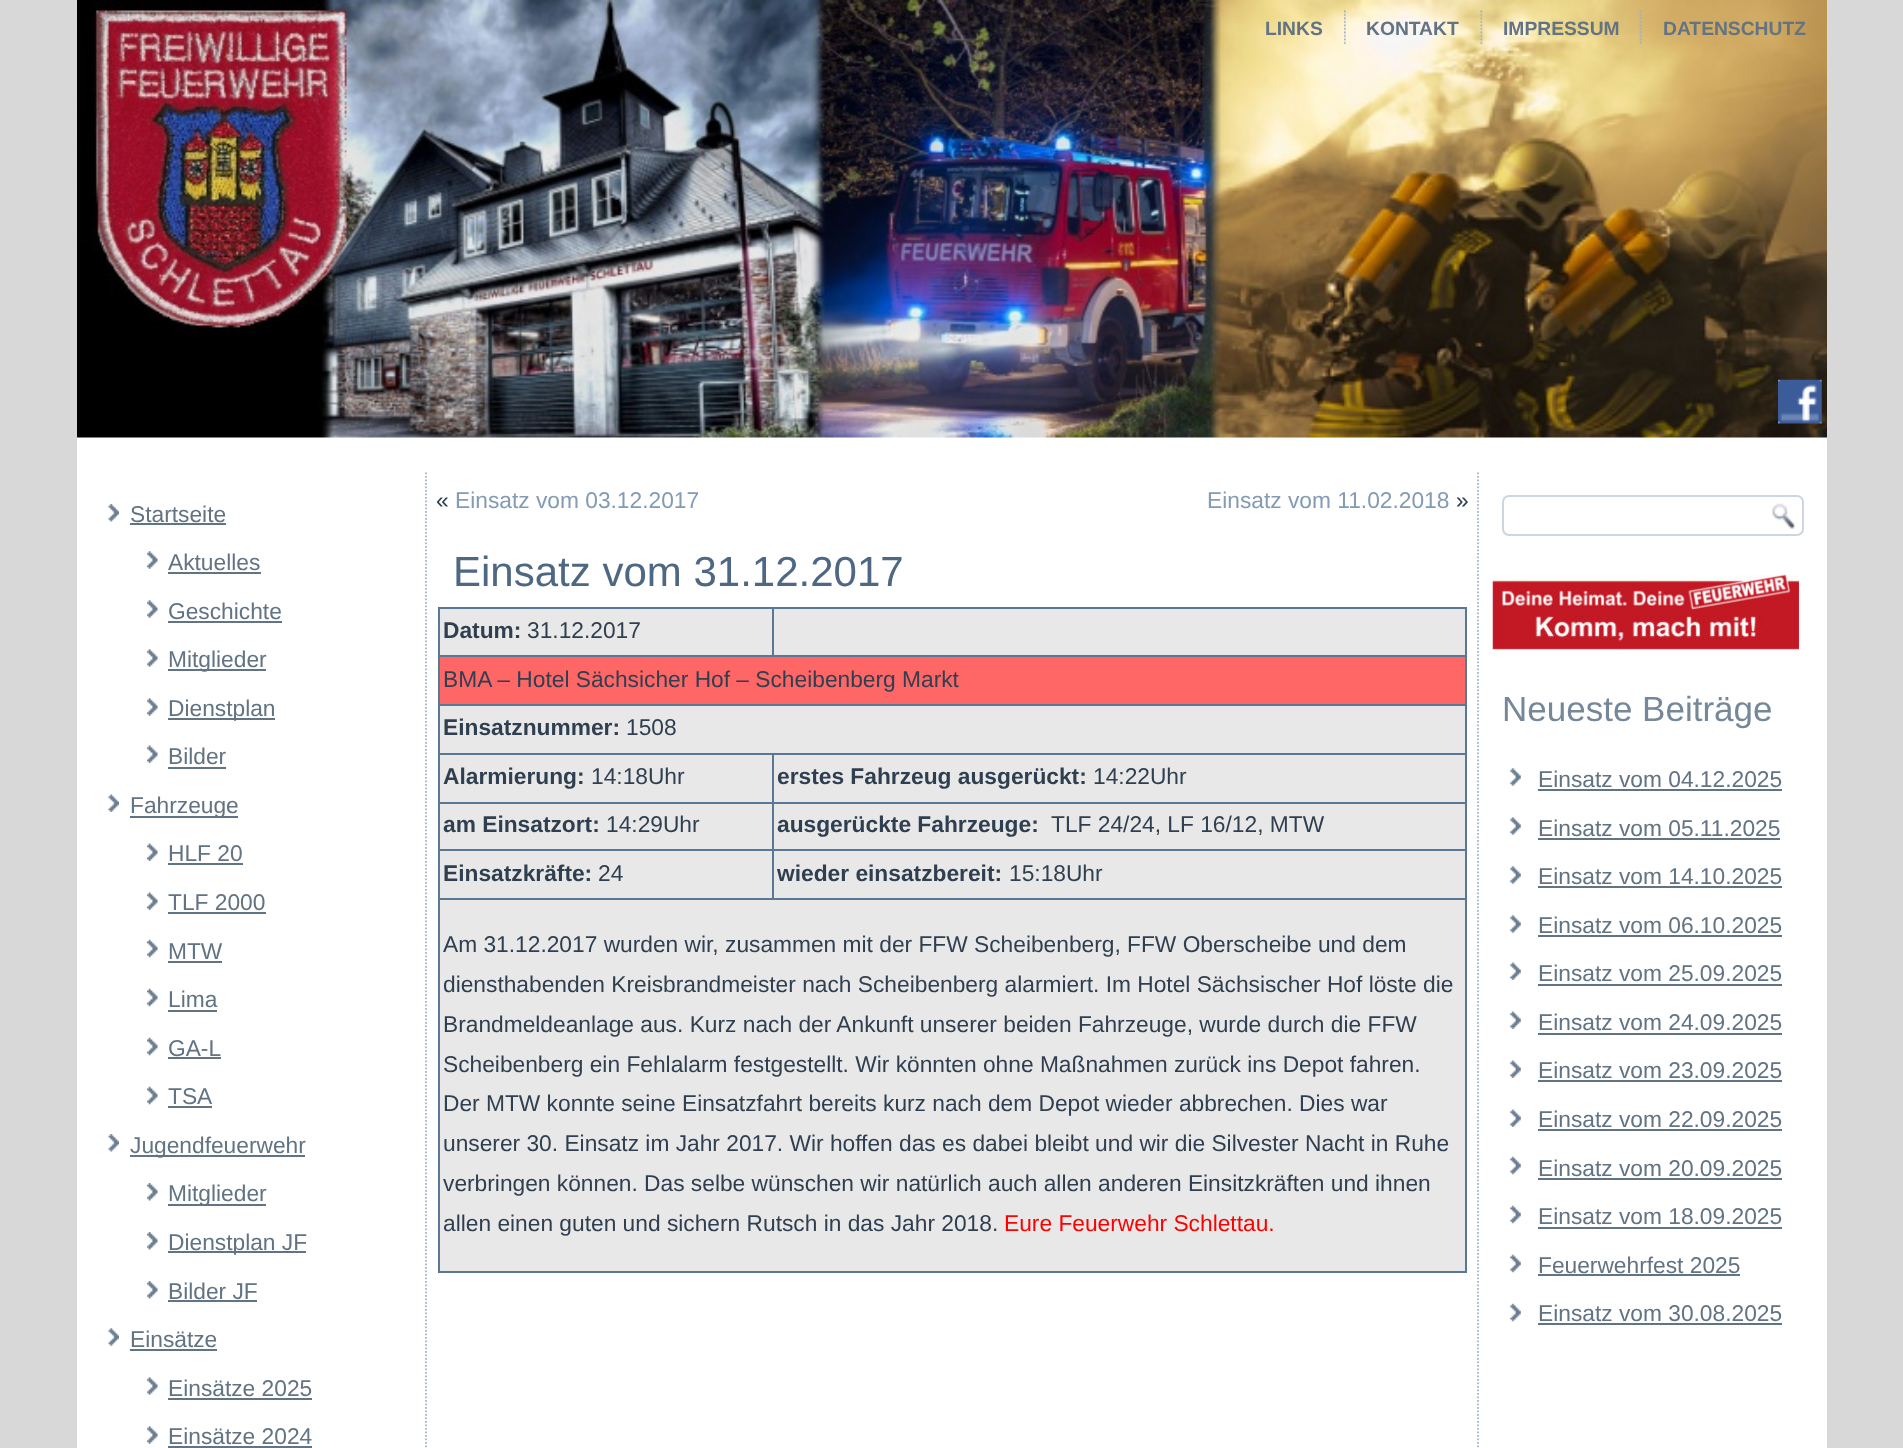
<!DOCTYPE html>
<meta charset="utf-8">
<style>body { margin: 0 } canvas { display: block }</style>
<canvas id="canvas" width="1903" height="1448"></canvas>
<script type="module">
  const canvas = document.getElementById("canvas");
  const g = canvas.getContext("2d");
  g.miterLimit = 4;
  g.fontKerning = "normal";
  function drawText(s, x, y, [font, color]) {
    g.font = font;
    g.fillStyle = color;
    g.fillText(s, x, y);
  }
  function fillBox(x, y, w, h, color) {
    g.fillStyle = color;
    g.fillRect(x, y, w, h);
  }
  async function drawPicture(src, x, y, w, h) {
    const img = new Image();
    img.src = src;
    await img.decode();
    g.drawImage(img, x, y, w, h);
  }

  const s1 = ["bold 19.25px Liberation Sans", "#627384"];
  const s2 = ["22.75px Liberation Sans", "#627384"];
  const s3 = ["22.75px Liberation Sans", "#303F50"];
  const s4 = ["22.75px Liberation Sans", "#839BB4"];
  const s5 = ["42px Liberation Sans", "#4E6883"];
  const s6 = ["bold 22.75px Liberation Sans", "#303F50"];
  const s7 = ["22.75px Liberation Sans", "#FF0000"];
  const s8 = ["35px Liberation Sans", "#758799"];

  fillBox(0, 0, 1903, 1448, "#D8D8D8");
  fillBox(77, 437, 1750, 1011, "#FFFFFF");
  await drawPicture("pic1.png", 77, 0, 1750, 438);
  drawText("LINKS", 1265, 35, s1);
  await drawPicture("pic2.png", 1344, 10, 2, 35);
  drawText("KONTAKT", 1366, 35, s1);
  await drawPicture("pic3.png", 1480, 10, 3, 35);
  drawText("IMPRESSUM", 1503, 35, s1);
  await drawPicture("pic4.png", 1639, 10, 3, 35);
  drawText("DATENSCHUTZ", 1663, 35, s1);
  await drawPicture("pic5.png", 1778, 379, 44, 45);
  g.beginPath();
  g.moveTo(426, 472.5);
  g.lineTo(426, 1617);
  g.strokeStyle = "#A3B4C8";
  g.lineWidth = 1.8;
  g.setLineDash([1.75, 1.75]);
  g.stroke();
  await drawPicture("pic6.png", 108, 504, 11, 18);
  drawText("Startseite", 130, 522, s2);
  fillBox(130, 523, 96, 2, "#627384");
  await drawPicture("pic7.png", 147, 551, 11, 18);
  drawText("Aktuelles", 168, 570, s2);
  fillBox(168, 572, 93, 2, "#627384");
  await drawPicture("pic7.png", 147, 600, 11, 18);
  drawText("Geschichte", 168, 619, s2);
  fillBox(168, 621, 114, 2, "#627384");
  await drawPicture("pic7.png", 147, 649, 11, 18);
  fillBox(168, 669, 98, 2, "#627384");
  drawText("Mitglieder", 168, 667, s2);
  await drawPicture("pic7.png", 147, 698, 11, 18);
  fillBox(168, 718, 107, 2, "#627384");
  drawText("Dienstplan", 168, 716, s2);
  await drawPicture("pic8.png", 147, 745, 11, 18);
  drawText("Bilder", 168, 764, s2);
  fillBox(168, 767, 58, 2, "#627384");
  await drawPicture("pic9.png", 108, 794, 11, 18);
  fillBox(130, 816, 108, 2, "#627384");
  drawText("Fahrzeuge", 130, 813, s2);
  await drawPicture("pic8.png", 147, 843, 11, 18);
  drawText("HLF 20", 168, 861, s2);
  fillBox(168, 863, 75, 2, "#627384");
  await drawPicture("pic8.png", 147, 892, 11, 18);
  drawText("TLF 2000", 168, 910, s2);
  fillBox(168, 912, 98, 2, "#627384");
  await drawPicture("pic10.png", 147, 939, 11, 19);
  drawText("MTW", 168, 959, s2);
  fillBox(168, 961, 54, 2, "#627384");
  await drawPicture("pic10.png", 147, 988, 11, 19);
  drawText("Lima", 168, 1007, s2);
  fillBox(168, 1010, 49, 2, "#627384");
  await drawPicture("pic10.png", 147, 1037, 11, 19);
  drawText("GA-L", 168, 1056, s2);
  fillBox(168, 1057, 53, 2, "#627384");
  await drawPicture("pic10.png", 147, 1086, 11, 19);
  drawText("TSA", 168, 1104, s2);
  fillBox(168, 1106, 44, 2, "#627384");
  await drawPicture("pic6.png", 108, 1134, 11, 18);
  fillBox(130, 1155, 175, 2, "#627384");
  drawText("Jugendfeuerwehr", 130, 1153, s2);
  await drawPicture("pic11.png", 147, 1183, 11, 18);
  fillBox(168, 1204, 98, 2, "#627384");
  drawText("Mitglieder", 168, 1201, s2);
  await drawPicture("pic11.png", 147, 1232, 11, 18);
  fillBox(168, 1251, 138, 2, "#627384");
  drawText("Dienstplan JF", 168, 1250, s2);
  await drawPicture("pic11.png", 147, 1281, 11, 18);
  drawText("Bilder JF", 168, 1299, s2);
  fillBox(168, 1300, 89, 2, "#627384");
  await drawPicture("pic12.png", 108, 1328, 11, 18);
  drawText("Einsätze", 130, 1347, s2);
  fillBox(130, 1349, 87, 2, "#627384");
  await drawPicture("pic7.png", 147, 1377, 11, 18);
  drawText("Einsätze 2025", 168, 1396, s2);
  fillBox(168, 1398, 144, 2, "#627384");
  await drawPicture("pic7.png", 147, 1426, 11, 18);
  drawText("Einsätze 2024", 168, 1444, s2);
  fillBox(168, 1446, 144, 2, "#627384");
  drawText("«", 436, 508, s3);
  drawText("Einsatz vom 03.12.2017", 455, 508, s4);
  drawText("Einsatz vom 11.02.2018", 1207, 508, s4);
  drawText("»", 1456, 508, s3);
  drawText("Einsatz vom 31.12.2017", 453, 586, s5);
  fillBox(440, 609, 332, 46, "#E8E8E8");
  fillBox(772, 607, 695, 2, "#5A7796");
  fillBox(438, 655, 1029, 2, "#5A7796");
  fillBox(772, 607, 2, 49, "#5A7796");
  fillBox(438, 607, 336, 2, "#5A7796");
  fillBox(438, 704, 1029, 2, "#5A7796");
  fillBox(772, 753, 695, 2, "#5A7796");
  fillBox(772, 802, 695, 2, "#5A7796");
  fillBox(772, 849, 695, 2, "#5A7796");
  fillBox(438, 898, 1029, 2, "#5A7796");
  fillBox(772, 849, 2, 51, "#5A7796");
  fillBox(438, 849, 336, 2, "#5A7796");
  fillBox(772, 802, 2, 49, "#5A7796");
  fillBox(438, 802, 336, 2, "#5A7796");
  fillBox(772, 753, 2, 50, "#5A7796");
  fillBox(438, 753, 336, 2, "#5A7796");
  fillBox(1465, 898, 2, 374, "#5A7796");
  fillBox(438, 1271, 1029, 2, "#5A7796");
  fillBox(438, 898, 2, 374, "#5A7796");
  fillBox(438, 849, 2, 51, "#5A7796");
  fillBox(438, 802, 2, 49, "#5A7796");
  fillBox(438, 753, 2, 50, "#5A7796");
  fillBox(438, 704, 2, 50, "#5A7796");
  fillBox(438, 655, 2, 50, "#5A7796");
  fillBox(438, 607, 2, 49, "#5A7796");
  drawText("Datum:", 443, 638, s6);
  drawText("31.12.2017", 527, 638, s3);
  fillBox(774, 609, 691, 46, "#E8E8E8");
  fillBox(1465, 849, 2, 51, "#5A7796");
  fillBox(1465, 802, 2, 49, "#5A7796");
  fillBox(1465, 753, 2, 50, "#5A7796");
  fillBox(1465, 704, 2, 50, "#5A7796");
  fillBox(1465, 655, 2, 50, "#5A7796");
  fillBox(1465, 607, 2, 49, "#5A7796");
  fillBox(440, 657, 1025, 47, "#FF6666");
  drawText("BMA – Hotel Sächsicher Hof – Scheibenberg Markt", 443, 687, s3);
  fillBox(440, 706, 1025, 47, "#E8E8E8");
  drawText("Einsatznummer:", 443, 735, s6);
  drawText("1508", 626, 735, s3);
  fillBox(440, 755, 332, 47, "#E8E8E8");
  drawText("Alarmierung:", 443, 784, s6);
  drawText("14:18Uhr", 591, 784, s3);
  fillBox(774, 755, 691, 47, "#E8E8E8");
  drawText("erstes Fahrzeug ausgerückt:", 777, 784, s6);
  drawText("14:22Uhr", 1093, 784, s3);
  fillBox(440, 804, 332, 45, "#E8E8E8");
  drawText("am Einsatzort:", 443, 832, s6);
  drawText("14:29Uhr", 606, 832, s3);
  fillBox(774, 804, 691, 45, "#E8E8E8");
  drawText("ausgerückte Fahrzeuge:", 777, 832, s6);
  drawText("TLF 24/24, LF 16/12, MTW", 1051, 832, s3);
  fillBox(440, 851, 332, 47, "#E8E8E8");
  drawText("Einsatzkräfte:", 443, 881, s6);
  drawText("24", 598, 881, s3);
  fillBox(774, 851, 691, 47, "#E8E8E8");
  drawText("wieder einsatzbereit:", 777, 881, s6);
  drawText("15:18Uhr", 1009, 881, s3);
  fillBox(440, 900, 1025, 371, "#E8E8E8");
  drawText("Am 31.12.2017 wurden wir, zusammen mit der FFW Scheibenberg, FFW Oberscheibe und dem", 443, 952, s3);
  drawText("diensthabenden Kreisbrandmeister nach Scheibenberg alarmiert. Im Hotel Sächsischer Hof löste die", 443, 992, s3);
  drawText("Brandmeldeanlage aus. Kurz nach der Ankunft unserer beiden Fahrzeuge, wurde durch die FFW", 443, 1032, s3);
  drawText("Scheibenberg ein Fehlalarm festgestellt. Wir könnten ohne Maßnahmen zurück ins Depot fahren.", 443, 1072, s3);
  drawText("Der MTW konnte seine Einsatzfahrt bereits kurz nach dem Depot wieder abbrechen. Dies war", 443, 1111, s3);
  drawText("unserer 30. Einsatz im Jahr 2017. Wir hoffen das es dabei bleibt und wir die Silvester Nacht in Ruhe", 443, 1151, s3);
  drawText("verbringen können. Das selbe wünschen wir natürlich auch allen anderen Einsitzkräften und ihnen", 443, 1191, s3);
  drawText("allen einen guten und sichern Rutsch in das Jahr 2018.", 443, 1231, s3);
  drawText("Eure Feuerwehr Schlettau.", 1004, 1231, s7);
  g.beginPath();
  g.moveTo(1478, 472.5);
  g.lineTo(1478, 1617);
  g.stroke();
  g.beginPath();
  g.roundRect(1503, 496, 300, 39, 6);
  g.strokeStyle = "#CCD6E0";
  g.lineWidth = 2;
  g.setLineDash([]);
  g.stroke();
  await drawPicture("pic13.png", 1771, 503, 25, 26);
  await drawPicture("pic14.png", 1492, 574, 307, 76);
  drawText("Neueste Beiträge", 1502, 721, s8);
  await drawPicture("pic15.png", 1510, 768, 11, 18);
  drawText("Einsatz vom 04.12.2025", 1538, 787, s2);
  fillBox(1538, 789, 244, 2, "#627384");
  await drawPicture("pic15.png", 1510, 817, 11, 18);
  drawText("Einsatz vom 05.11.2025", 1538, 836, s2);
  fillBox(1538, 838, 242, 2, "#627384");
  await drawPicture("pic15.png", 1510, 866, 11, 18);
  drawText("Einsatz vom 14.10.2025", 1538, 884, s2);
  fillBox(1538, 886, 244, 2, "#627384");
  await drawPicture("pic15.png", 1510, 915, 11, 18);
  drawText("Einsatz vom 06.10.2025", 1538, 933, s2);
  fillBox(1538, 935, 244, 2, "#627384");
  await drawPicture("pic16.png", 1510, 962, 11, 18);
  drawText("Einsatz vom 25.09.2025", 1538, 981, s2);
  fillBox(1538, 984, 244, 2, "#627384");
  await drawPicture("pic16.png", 1510, 1011, 11, 18);
  drawText("Einsatz vom 24.09.2025", 1538, 1030, s2);
  fillBox(1538, 1033, 244, 2, "#627384");
  await drawPicture("pic16.png", 1510, 1060, 11, 18);
  drawText("Einsatz vom 23.09.2025", 1538, 1078, s2);
  fillBox(1538, 1080, 244, 2, "#627384");
  await drawPicture("pic16.png", 1510, 1109, 11, 18);
  drawText("Einsatz vom 22.09.2025", 1538, 1127, s2);
  fillBox(1538, 1129, 244, 2, "#627384");
  await drawPicture("pic17.png", 1510, 1156, 11, 19);
  drawText("Einsatz vom 20.09.2025", 1538, 1176, s2);
  fillBox(1538, 1178, 244, 2, "#627384");
  await drawPicture("pic17.png", 1510, 1205, 11, 19);
  drawText("Einsatz vom 18.09.2025", 1538, 1224, s2);
  fillBox(1538, 1227, 244, 2, "#627384");
  await drawPicture("pic17.png", 1510, 1254, 11, 19);
  drawText("Feuerwehrfest 2025", 1538, 1273, s2);
  fillBox(1538, 1274, 202, 2, "#627384");
  await drawPicture("pic17.png", 1510, 1303, 11, 19);
  drawText("Einsatz vom 30.08.2025", 1538, 1321, s2);
  fillBox(1538, 1323, 244, 2, "#627384");
</script>
